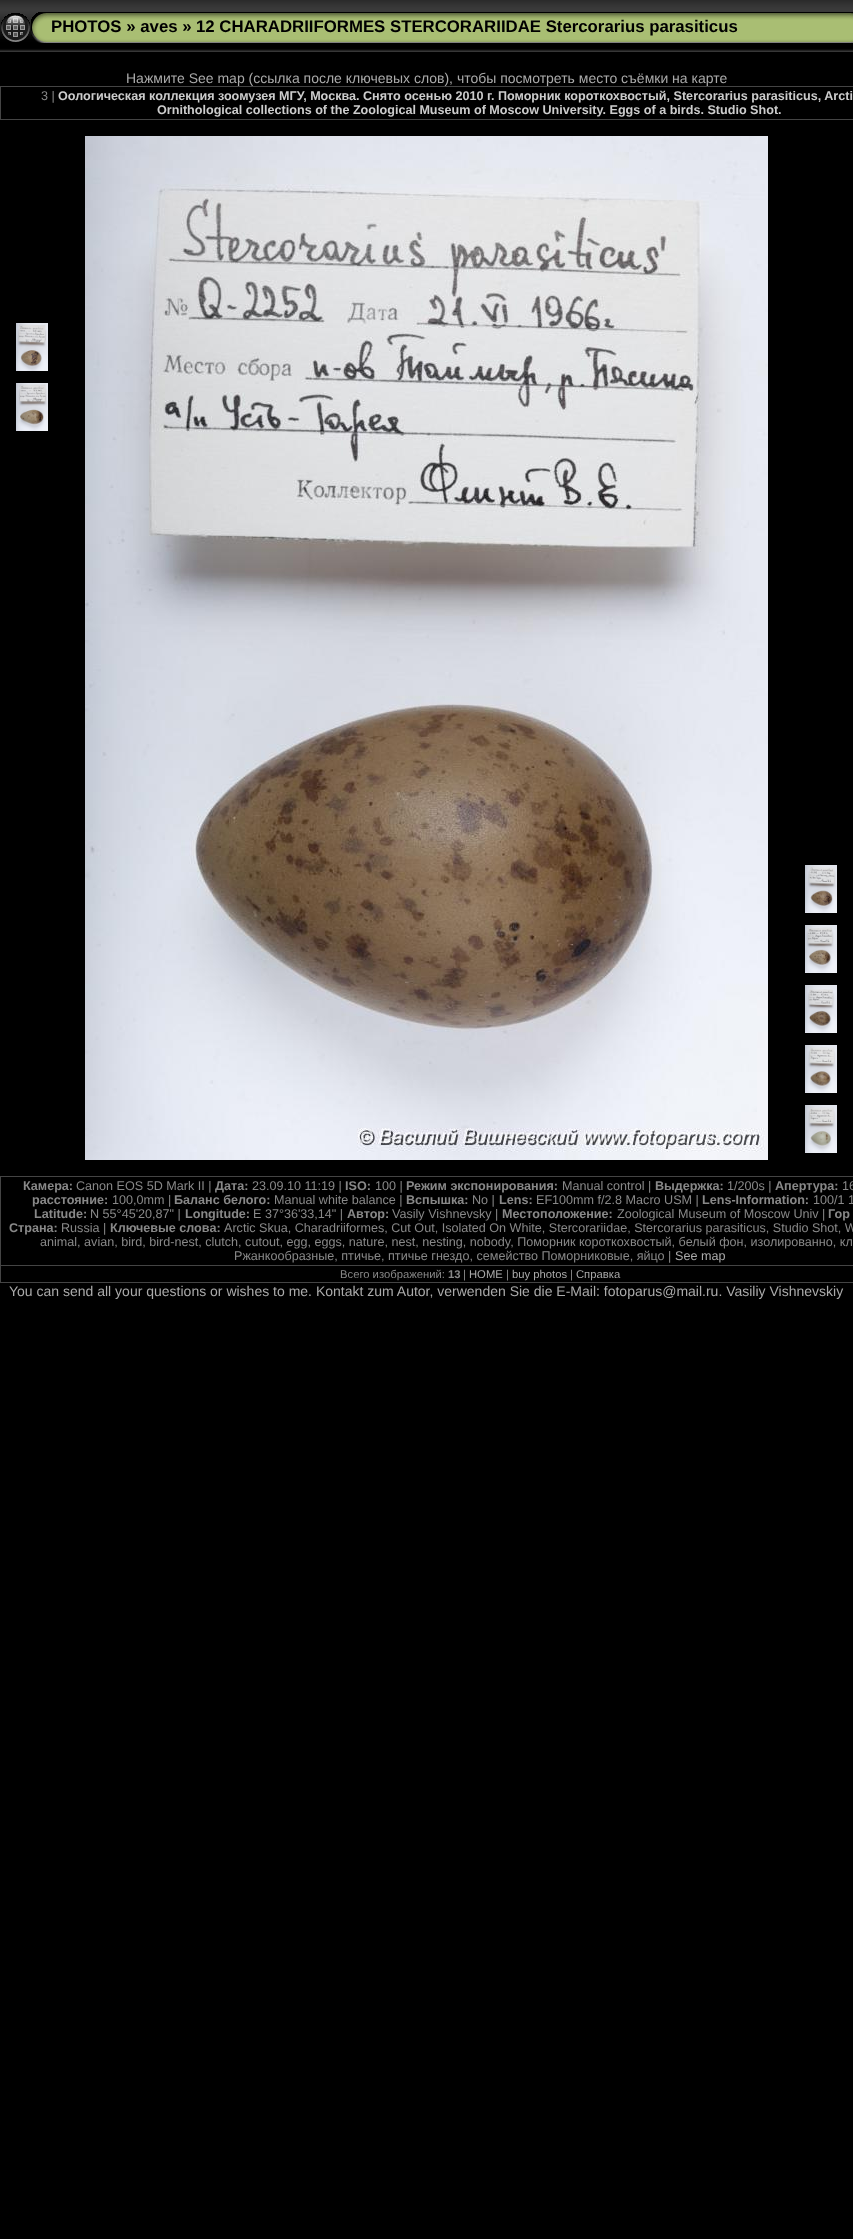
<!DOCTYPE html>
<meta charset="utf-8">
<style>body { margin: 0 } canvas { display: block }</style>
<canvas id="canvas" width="853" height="2239"></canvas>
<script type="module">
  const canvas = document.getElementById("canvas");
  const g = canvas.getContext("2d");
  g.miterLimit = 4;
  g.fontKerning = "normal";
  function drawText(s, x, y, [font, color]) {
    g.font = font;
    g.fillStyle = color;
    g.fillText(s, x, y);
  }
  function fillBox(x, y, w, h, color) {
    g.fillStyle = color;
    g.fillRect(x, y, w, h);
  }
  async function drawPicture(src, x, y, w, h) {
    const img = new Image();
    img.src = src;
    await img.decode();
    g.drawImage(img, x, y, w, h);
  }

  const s1 = ["bold 16.8px Liberation Sans", "#000000"];
  const s2 = ["14px Liberation Sans", "#AAAAAA"];
  const s3 = ["12.6px Liberation Sans", "#888888"];
  const s4 = ["bold 12.6px Liberation Sans", "#CCCCCC"];
  const s5 = ["bold 12.6px Liberation Sans", "#888888"];
  const s6 = ["12.6px Liberation Sans", "#AAAAAA"];
  const s7 = ["11.25px Liberation Sans", "#888888"];
  const s8 = ["bold 11.25px Liberation Sans", "#888888"];
  const s9 = ["11.25px Liberation Sans", "#AAAAAA"];

  fillBox(0, 0, 853, 2239, "#000000");
  await drawPicture("pic1.png", 0, 0, 853, 52);
  await drawPicture("pic2.png", 1, 13, 29, 29);
  await drawPicture("pic3.png", 31, 12, 20, 31);
  await drawPicture("pic4.png", 51, 12, 796, 31);
  drawText("PHOTOS » aves »", 51, 32, s1);
  drawText("12 CHARADRIIFORMES STERCORARIIDAE Stercorarius parasiticus", 196, 32, s1);
  await drawPicture("pic5.png", 847, 12, 6, 31);
  drawText("Нажмите See map (ссылка после ключевых слов), чтобы посмотреть место съёмки на карте", 126, 83, s2);
  fillBox(0, 86, 853, 1, "#444444");
  fillBox(0, 119, 853, 1, "#444444");
  fillBox(0, 86, 1, 34, "#444444");
  drawText("3 |", 41, 100, s3);
  drawText("Оологическая коллекция зоомузея МГУ, Москва. Снято осенью 2010 г. Поморник короткохвостый, Stercorarius parasiticus, Arcti", 58, 100, s4);
  drawText("Ornithological collections of the Zoological Museum of Moscow University. Eggs of a birds. Studio Shot.", 157, 114, s4);
  await drawPicture("pic6.png", 16, 323, 32, 48);
  await drawPicture("pic7.png", 16, 383, 32, 48);
  await drawPicture("pic8.png", 85, 136, 683, 1024);
  await drawPicture("pic9.png", 805, 865, 32, 48);
  await drawPicture("pic10.png", 805, 925, 32, 48);
  await drawPicture("pic11.png", 805, 985, 32, 48);
  await drawPicture("pic12.png", 805, 1045, 32, 48);
  await drawPicture("pic13.png", 805, 1105, 32, 48);
  fillBox(0, 1176, 853, 1, "#444444");
  fillBox(0, 1282, 853, 1, "#444444");
  fillBox(0, 1176, 1, 107, "#444444");
  drawText("Камера:", 23, 1190, s5);
  drawText("Canon EOS 5D Mark II |", 76, 1190, s3);
  drawText("Дата:", 215, 1190, s5);
  drawText("23.09.10 11:19 |", 252, 1190, s3);
  drawText("ISO:", 345, 1190, s5);
  drawText("100 |", 375, 1190, s3);
  drawText("Режим экспонирования:", 406, 1190, s5);
  drawText("Manual control |", 562, 1190, s3);
  drawText("Выдержка:", 655, 1190, s5);
  drawText("1/200s |", 727, 1190, s3);
  drawText("Апертура:", 775, 1190, s5);
  drawText("16", 842, 1190, s3);
  drawText("расстояние:", 32, 1204, s5);
  drawText("100,0mm |", 112, 1204, s3);
  drawText("Баланс белого:", 174, 1204, s5);
  drawText("Manual white balance |", 274, 1204, s3);
  drawText("Вспышка:", 406, 1204, s5);
  drawText("No |", 472, 1204, s3);
  drawText("Lens:", 499, 1204, s5);
  drawText("EF100mm f/2.8 Macro USM |", 536, 1204, s3);
  drawText("Lens-Information:", 702, 1204, s5);
  drawText("100/1 1", 813, 1204, s3);
  drawText("Latitude:", 34, 1218, s5);
  drawText("N 55°45'20,87\" |", 90, 1218, s3);
  drawText("Longitude:", 185, 1218, s5);
  drawText("E 37°36'33,14\" |", 253, 1218, s3);
  drawText("Автор:", 347, 1218, s5);
  drawText("Vasily Vishnevsky |", 392, 1218, s3);
  drawText("Местоположение:", 502, 1218, s5);
  drawText("Zoological Museum of Moscow Univ |", 617, 1218, s3);
  drawText("Гор", 828, 1218, s5);
  drawText("Страна:", 9, 1232, s5);
  drawText("Russia |", 61, 1232, s3);
  drawText("Ключевые слова:", 110, 1232, s5);
  drawText("Arctic Skua, Charadriiformes, Cut Out, Isolated On White, Stercorariidae, Stercorarius parasiticus, Studio Shot, W", 224, 1232, s3);
  drawText("animal, avian, bird, bird-nest, clutch, cutout, egg, eggs, nature, nest, nesting, nobody, Поморник короткохвостый, белый фон, изолированно, кл", 40, 1246, s3);
  drawText("Ржанкообразные, птичье, птичье гнездо, семейство Поморниковые, яйцо |", 234, 1260, s3);
  drawText("See map", 675, 1260, s6);
  fillBox(0, 1265, 853, 1, "#444444");
  drawText("Всего изображений:", 340, 1278, s7);
  drawText("13", 448, 1278, s8);
  drawText("|", 463, 1278, s7);
  drawText("HOME", 469, 1278, s9);
  drawText("|", 506, 1278, s7);
  drawText("buy photos", 512, 1278, s9);
  drawText("|", 570, 1278, s7);
  drawText("Справка", 576, 1278, s9);
  drawText("You can send all your questions or wishes to me. Kontakt zum Autor, verwenden Sie die E-Mail: fotoparus@mail.ru. Vasiliy Vishnevskiy", 9, 1296, s2);
</script>
